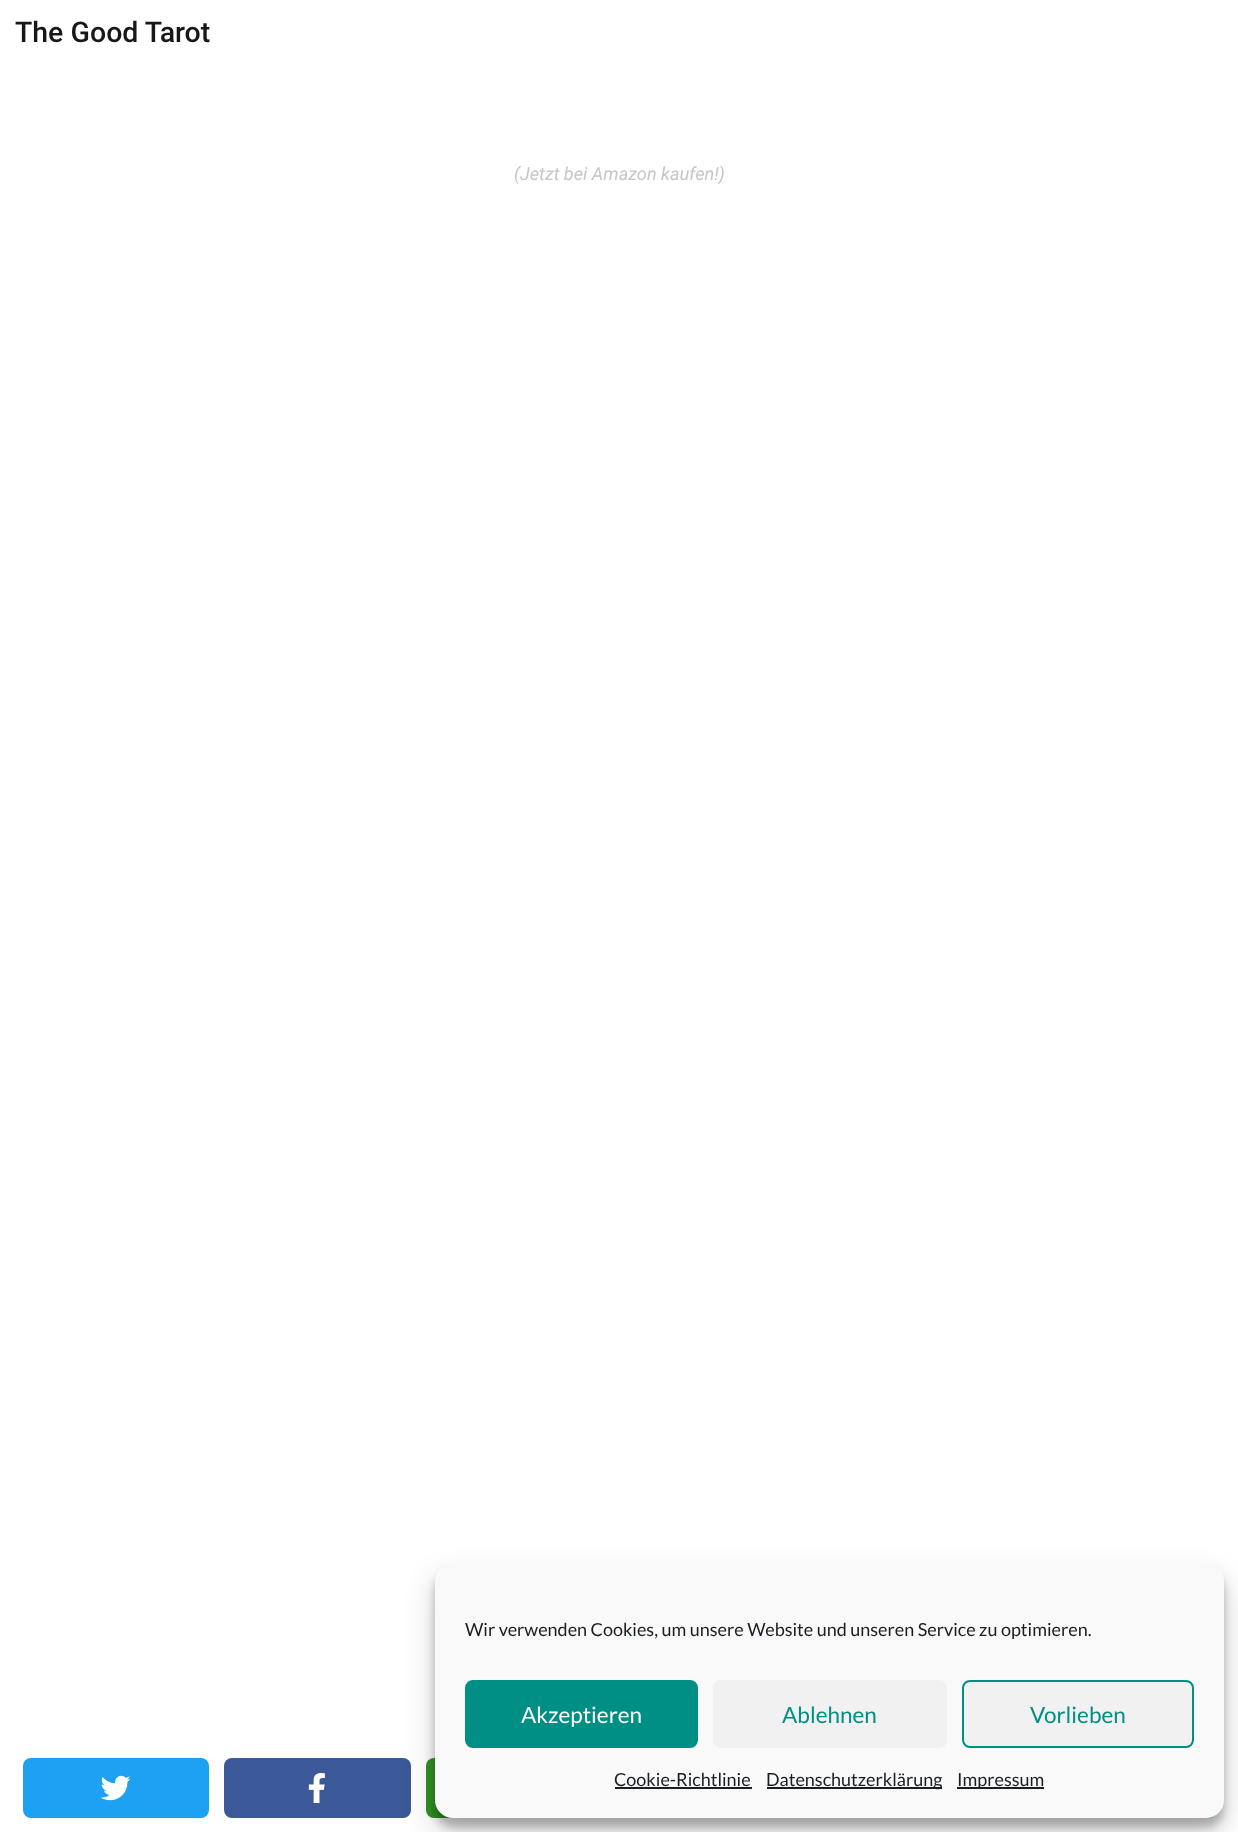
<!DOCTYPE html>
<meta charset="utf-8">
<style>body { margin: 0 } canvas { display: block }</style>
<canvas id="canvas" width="1238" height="1832"></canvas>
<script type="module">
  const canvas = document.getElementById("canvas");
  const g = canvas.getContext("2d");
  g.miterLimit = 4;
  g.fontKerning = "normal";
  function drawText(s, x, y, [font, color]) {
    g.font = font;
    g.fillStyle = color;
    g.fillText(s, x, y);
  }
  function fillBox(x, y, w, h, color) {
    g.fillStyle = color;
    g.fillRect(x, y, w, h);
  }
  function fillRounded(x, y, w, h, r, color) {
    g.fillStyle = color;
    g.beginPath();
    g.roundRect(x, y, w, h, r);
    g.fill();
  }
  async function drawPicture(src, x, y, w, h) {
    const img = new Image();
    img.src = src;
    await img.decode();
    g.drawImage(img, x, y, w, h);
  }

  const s1 = ["500 28.5px Roboto", "#16181A"];
  const s2 = ["italic 18px Roboto", "#C6C6C6"];
  const s3 = ["18px Lato", "#191E23"];
  const s4 = ["22.5px Lato", "#FFFFFF"];
  const s5 = ["22.5px Lato", "#008F84"];

  fillBox(0, 0, 1238, 1832, "#FFFFFF");
  drawText("The Good Tarot", 15, 42, s1);
  drawText("(Jetzt bei Amazon kaufen!)", 514, 180, s2);
  fillRounded(426, 1758, 186, 60, 8, "#319324");
  fillRounded(1031, 1758, 186, 60, 8, "#25D366");
  g.fillStyle = "rgba(0, 0, 0, 0.23)";
  g.filter = "blur(4.5px)";
  g.beginPath();
  g.roundRect(435, 1572, 789, 255, 18);
  g.fill();
  g.filter = "none";
  fillRounded(224, 1758, 187, 60, 8, "#3B5998");
  g.fillStyle = "rgba(0, 0, 0, 0.19)";
  g.filter = "blur(15px)";
  g.beginPath();
  g.roundRect(435, 1578, 789, 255, 18);
  g.fill();
  g.filter = "none";
  fillRounded(435, 1563, 789, 255, 18, "#F9F9F9");
  drawText("Wir verwenden Cookies, um unsere Website und unseren Service zu optimieren.", 465, 1636, s3);
  g.fillStyle = "#008F84";
  g.beginPath();
  g.roundRect(466, 1681, 231, 66, 7);
  g.fill();
  g.strokeStyle = "#008F84";
  g.lineWidth = 2;
  g.stroke();
  drawText("Akzeptieren", 521, 1723, s4);
  fillRounded(713, 1680, 234, 68, 8, "#F1F1F1");
  drawText("Ablehnen", 782, 1723, s5);
  g.fillStyle = "#F1F1F1";
  g.beginPath();
  g.roundRect(963, 1681, 230, 66, 7);
  g.fill();
  g.stroke();
  drawText("Vorlieben", 1030, 1723, s5);
  drawText("Cookie-Richtlinie", 614, 1786, s3);
  fillBox(615, 1787, 137, 2, "#191E23");
  fillBox(767, 1787, 175, 2, "#191E23");
  drawText("Datenschutzerklärung", 766, 1786, s3);
  fillBox(957, 1787, 87, 2, "#191E23");
  drawText("Impressum", 957, 1786, s3);
  fillRounded(23, 1758, 186, 60, 8, "#1DA1F2");
  await drawPicture("pic1.png", 101, 1775, 30, 26);
  await drawPicture("pic2.png", 308, 1773, 17, 30);
</script>
